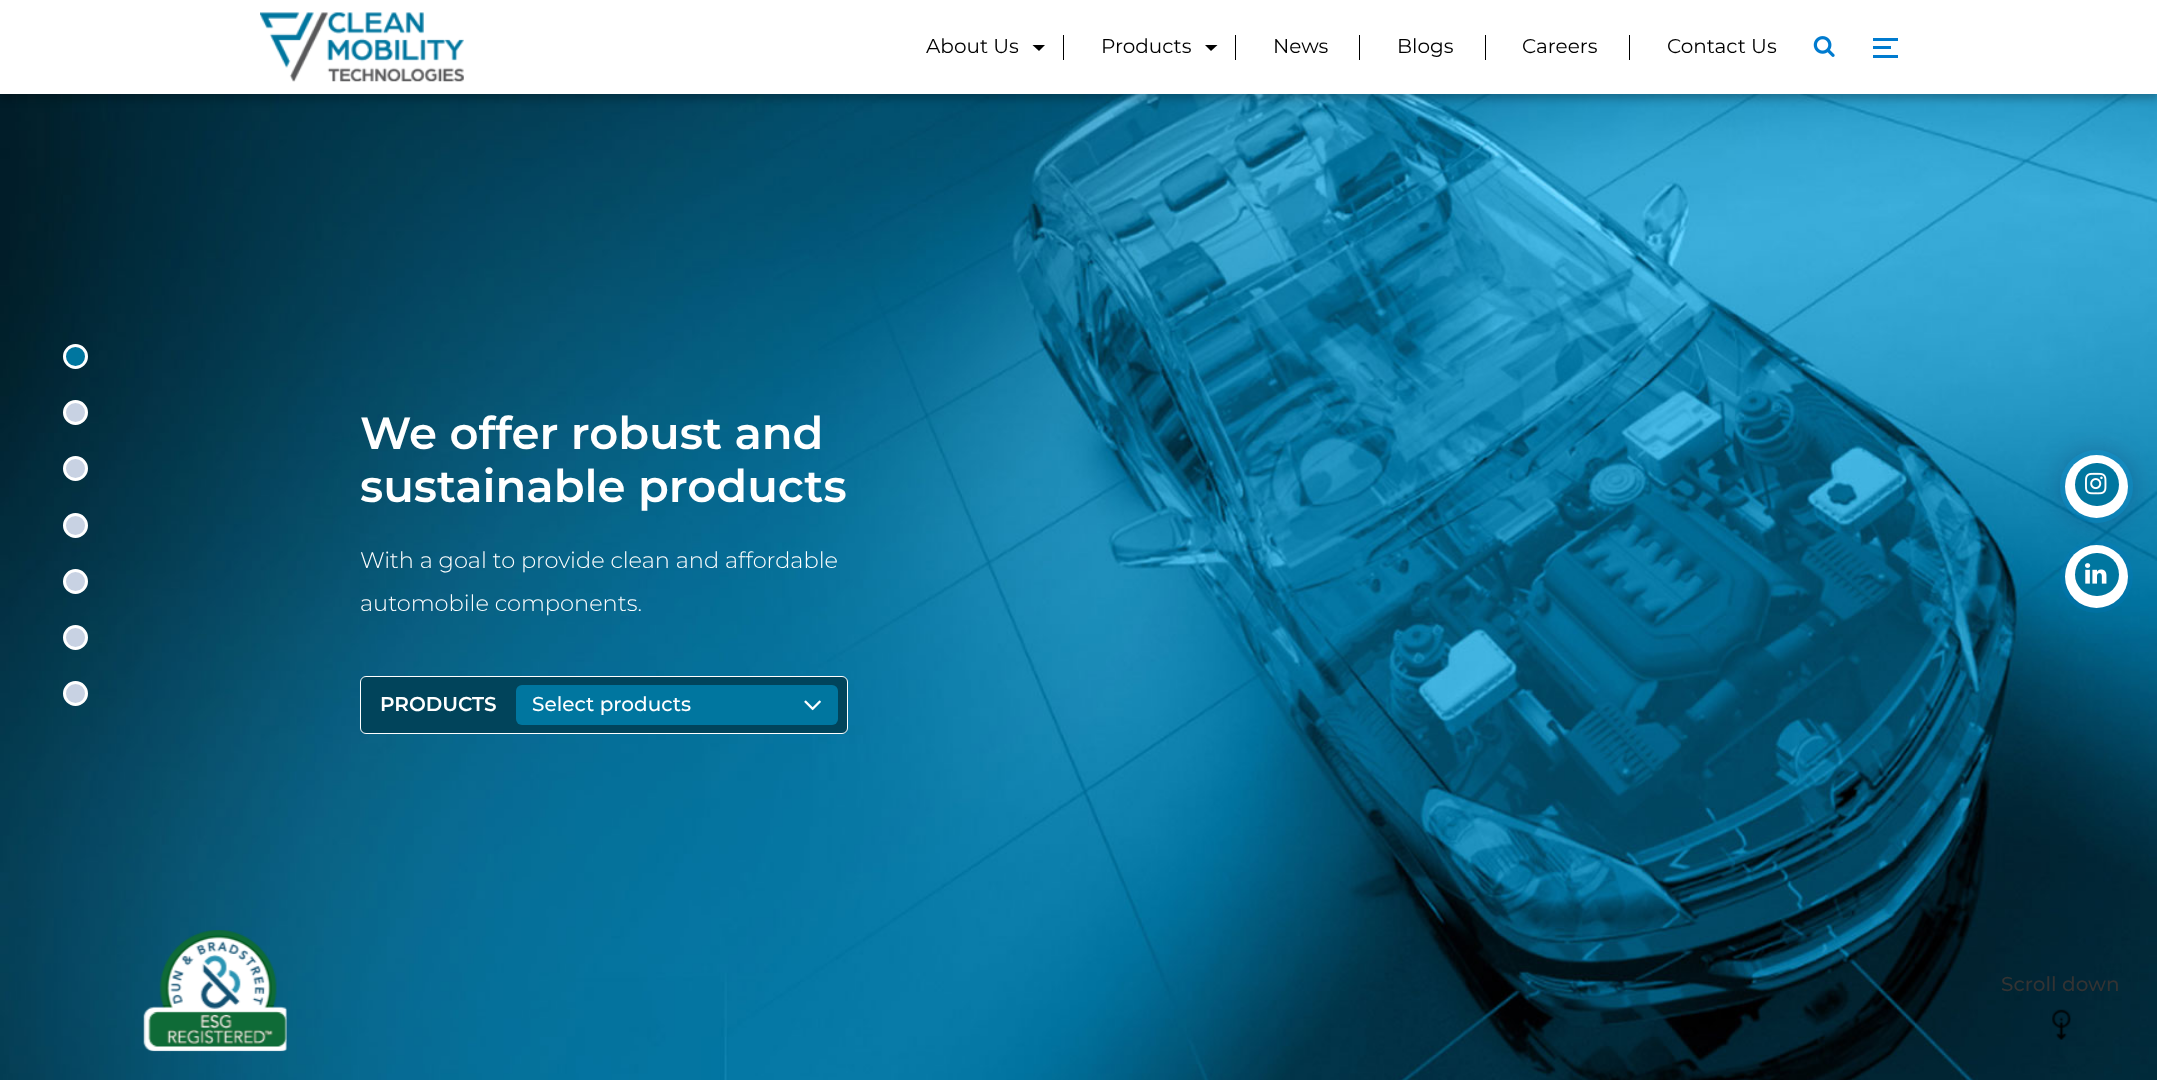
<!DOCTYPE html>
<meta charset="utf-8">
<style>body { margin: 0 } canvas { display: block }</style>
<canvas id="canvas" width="2157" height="1080"></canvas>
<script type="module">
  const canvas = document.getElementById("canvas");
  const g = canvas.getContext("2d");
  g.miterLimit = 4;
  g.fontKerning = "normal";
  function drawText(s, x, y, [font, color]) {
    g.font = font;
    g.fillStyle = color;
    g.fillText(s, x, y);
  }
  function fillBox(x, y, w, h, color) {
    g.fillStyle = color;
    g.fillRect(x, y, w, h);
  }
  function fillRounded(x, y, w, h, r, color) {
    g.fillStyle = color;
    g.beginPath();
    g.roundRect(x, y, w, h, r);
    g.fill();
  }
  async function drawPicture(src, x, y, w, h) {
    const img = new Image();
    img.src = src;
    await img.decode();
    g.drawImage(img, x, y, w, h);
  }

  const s1 = ["20px Montserrat", "#000000"];
  const s2 = ["600 45px Montserrat", "#FFFFFF"];
  const s3 = ["300 22.5px Montserrat", "#FFFFFF"];
  const s4 = ["600 20px Montserrat", "#FFFFFF"];
  const s5 = ["500 20px Montserrat", "#FFFFFF"];
  const s6 = ["500 20px Montserrat", "#333333"];

  fillBox(0, 0, 2157, 1080, "#FFFFFF");
  await drawPicture("pic6.png", 0, 94, 2157, 986);
  g.fillStyle = "rgba(0, 0, 0, 0.25)";
  g.filter = "blur(4.5px)";
  g.beginPath();
  g.rect(0, 5, 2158, 94);
  g.fill();
  g.filter = "none";
  fillBox(0, 0, 2157, 94, "#FFFFFF");
  await drawPicture("pic1.png", 260, 12, 204, 70);
  fillBox(1063, 35, 1, 25, "#000000");
  drawText("About Us", 926, 53, s1);
  g.beginPath();
  g.moveTo(1032.5, 45);
  g.lineTo(1045, 45);
  g.lineTo(1039, 51);
  g.closePath();
  g.fill();
  fillBox(1235, 35, 1, 25, "#000000");
  drawText("Products", 1101, 53, s1);
  g.beginPath();
  g.moveTo(1205, 45);
  g.lineTo(1217.5, 45);
  g.lineTo(1211, 51);
  g.closePath();
  g.fill();
  fillBox(1359, 35, 1, 25, "#000000");
  drawText("News", 1273, 53, s1);
  fillBox(1485, 35, 1, 25, "#000000");
  drawText("Blogs", 1397, 53, s1);
  fillBox(1629, 35, 1, 25, "#000000");
  drawText("Careers", 1522, 53, s1);
  drawText("Contact Us", 1667, 53, s1);
  await drawPicture("pic2.png", 1813, 36, 22, 21);
  fillBox(1873, 38, 25, 3, "#007BCF");
  fillBox(1873, 46, 18, 3, "#007BCF");
  fillBox(1873, 55, 25, 3, "#007BCF");
  g.save();
  g.beginPath();
  g.moveTo(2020, 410);
  g.lineTo(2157, 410);
  g.lineTo(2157, 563);
  g.lineTo(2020, 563);
  g.closePath();
  g.moveTo(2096.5, 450);
  g.bezierCurveTo(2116.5, 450, 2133, 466.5, 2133, 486.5);
  g.bezierCurveTo(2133, 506.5, 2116.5, 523, 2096.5, 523);
  g.bezierCurveTo(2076.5, 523, 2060, 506.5, 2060, 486.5);
  g.bezierCurveTo(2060, 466.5, 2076.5, 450, 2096.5, 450);
  g.closePath();
  g.clip("evenodd");
  g.fillStyle = "rgba(20, 41, 88, 0.28)";
  g.filter = "blur(13px)";
  g.beginPath();
  g.roundRect(2060, 450, 73, 73, 36.5);
  g.fill();
  g.filter = "none";
  g.restore();
  g.fillStyle = "rgba(0, 123, 207, 0.2)";
  g.beginPath();
  g.arc(2096.5, 486.5, 36.5, 0, Math.PI * 2);
  g.fill();
  g.fillStyle = "#FFFFFF";
  g.beginPath();
  g.arc(2096.5, 486.5, 31.5, 0, Math.PI * 2);
  g.fill();
  fillRounded(2075, 463, 44, 43, 21.5, "#00769F");
  await drawPicture("pic3.png", 2085, 472, 22, 23);
  g.fillStyle = "rgba(0, 123, 207, 0.2)";
  g.beginPath();
  g.arc(2096.5, 576.5, 36.5, 0, Math.PI * 2);
  g.fill();
  g.fillStyle = "#FFFFFF";
  g.beginPath();
  g.arc(2096.5, 576.5, 31.5, 0, Math.PI * 2);
  g.fill();
  fillRounded(2075, 553, 44, 43, 21.5, "#00769F");
  await drawPicture("pic4.png", 2085, 563, 22, 21);
  await drawPicture("pic5.png", 143, 930, 144, 122);
  g.beginPath();
  g.arc(75.5, 356.5, 11, 0, Math.PI * 2);
  g.fill();
  g.strokeStyle = "#FFFFFF";
  g.lineWidth = 3;
  g.stroke();
  g.fillStyle = "#C8D2E3";
  g.beginPath();
  g.arc(75.5, 412.5, 11, 0, Math.PI * 2);
  g.fill();
  g.stroke();
  g.beginPath();
  g.arc(75.5, 468.5, 11, 0, Math.PI * 2);
  g.fill();
  g.stroke();
  g.beginPath();
  g.arc(75.5, 525.5, 11, 0, Math.PI * 2);
  g.fill();
  g.stroke();
  g.beginPath();
  g.arc(75.5, 581.5, 11, 0, Math.PI * 2);
  g.fill();
  g.stroke();
  g.beginPath();
  g.arc(75.5, 637.5, 11, 0, Math.PI * 2);
  g.fill();
  g.stroke();
  g.beginPath();
  g.arc(75.5, 693.5, 11, 0, Math.PI * 2);
  g.fill();
  g.stroke();
  drawText("We offer robust and", 360, 449, s2);
  drawText("sustainable products", 360, 502, s2);
  drawText("With a goal to provide clean and affordable", 360, 568, s3);
  drawText("automobile components.", 360, 611, s3);
  g.fillStyle = "#01445B";
  g.beginPath();
  g.roundRect(360.5, 676.5, 487, 57, 5.5);
  g.fill();
  g.lineWidth = 1;
  g.stroke();
  drawText("PRODUCTS", 380, 711, s4);
  fillRounded(516, 685, 322, 40, 6, "#00769F");
  drawText("Select products", 532, 711, s5);
  await drawPicture("pic7.png", 804, 700, 17, 11);
  drawText("Scroll down", 2001, 991, s6);
  await drawPicture("pic8.png", 2052, 1009, 19, 31);
</script>
